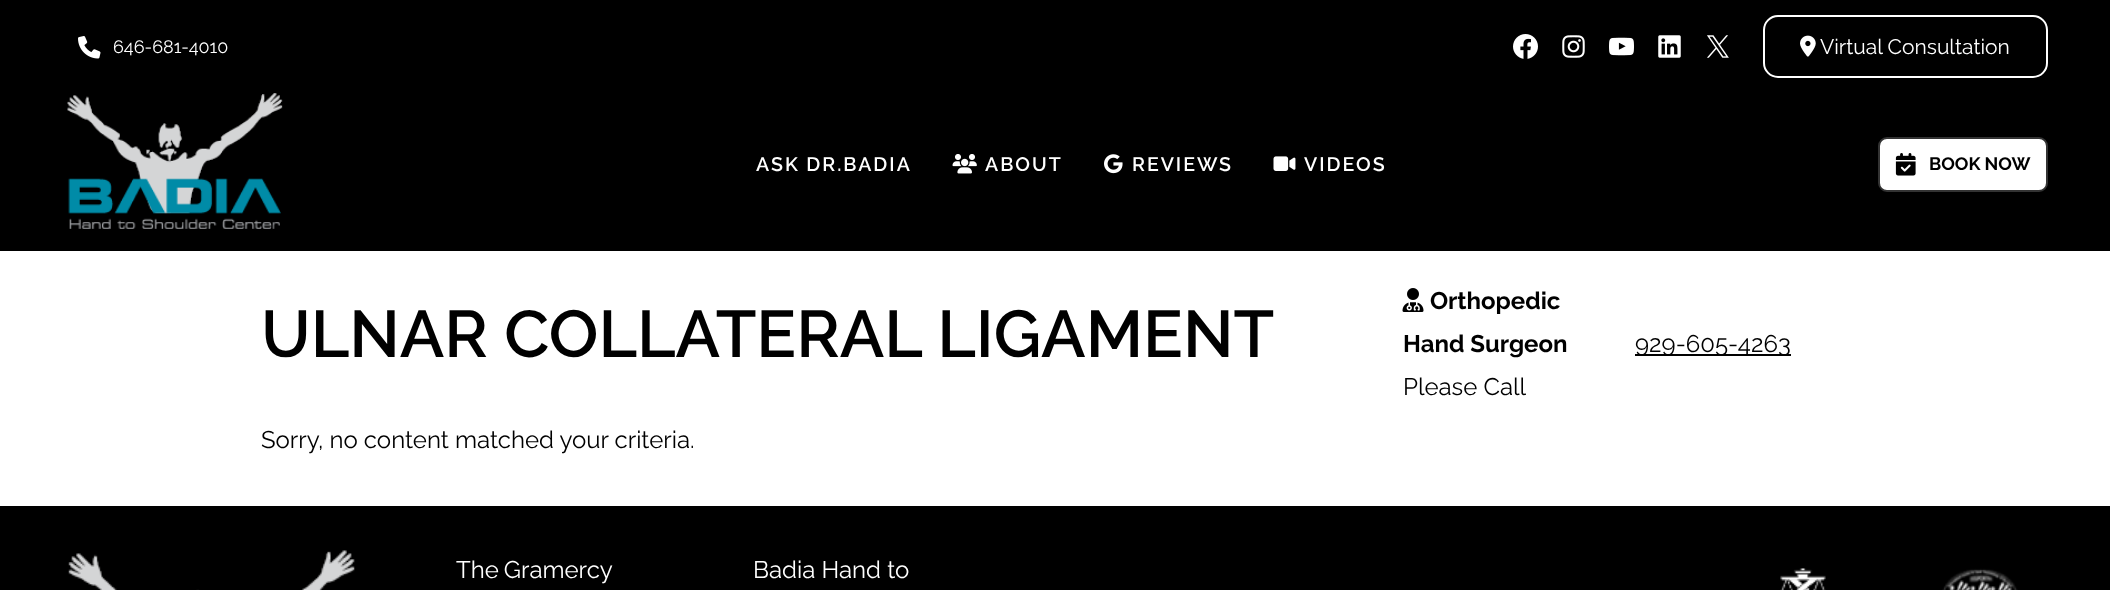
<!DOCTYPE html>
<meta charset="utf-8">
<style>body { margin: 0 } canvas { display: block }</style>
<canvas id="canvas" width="2110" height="590"></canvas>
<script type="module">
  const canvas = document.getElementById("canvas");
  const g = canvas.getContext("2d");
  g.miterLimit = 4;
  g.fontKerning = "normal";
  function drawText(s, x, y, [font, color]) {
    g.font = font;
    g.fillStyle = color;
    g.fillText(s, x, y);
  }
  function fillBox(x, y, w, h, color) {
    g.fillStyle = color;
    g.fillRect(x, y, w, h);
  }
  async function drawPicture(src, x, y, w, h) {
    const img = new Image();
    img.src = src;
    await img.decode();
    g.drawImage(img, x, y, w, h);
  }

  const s1 = ["18px Raleway", "#FFFFFF"];
  const s2 = ["21px Raleway", "#FFFFFF"];
  const s3 = ["600 19.5px Raleway", "#FFFFFF"];
  const s4 = ["bold 18px Raleway", "#000000"];
  const s5 = ["600 66px Raleway", "#000000"];
  const s6 = ["24px Raleway", "#000000"];
  const s7 = ["bold 24px Raleway", "#000000"];
  const s8 = ["24px Raleway", "#FFFFFF"];

  fillBox(0, 0, 2110, 590, "#FFFFFF");
  fillBox(0, 0, 2110, 251, "#000000");
  await drawPicture("pic1.png", 78, 36, 23, 23);
  drawText("646-681-4010", 113, 53, s1);
  await drawPicture("pic2.png", 1513, 34, 25, 25);
  await drawPicture("pic3.png", 1562, 35, 23, 23);
  await drawPicture("pic4.png", 1609, 37, 25, 19);
  await drawPicture("pic5.png", 1658, 35, 23, 23);
  await drawPicture("pic6.png", 1707, 35, 22, 23);
  g.beginPath();
  g.roundRect(1764, 16, 283, 61, 14);
  g.strokeStyle = "#FFFFFF";
  g.lineWidth = 2;
  g.stroke();
  await drawPicture("pic7.png", 1800, 35, 16, 22);
  drawText("Virtual Consultation", 1820, 54, s2);
  await drawPicture("pic8.png", 67, 93, 216, 136);
  g.letterSpacing = "2px";
  drawText("ASK DR.BADIA", 756, 171, s3);
  await drawPicture("pic9.png", 952, 154, 25, 20);
  drawText("ABOUT", 985, 171, s3);
  await drawPicture("pic10.png", 1104, 154, 19, 20);
  drawText("REVIEWS", 1132, 171, s3);
  await drawPicture("pic11.png", 1273, 156, 23, 15);
  drawText("VIDEOS", 1304, 171, s3);
  g.beginPath();
  g.roundRect(1879, 138, 168, 53, 8);
  g.fill();
  g.strokeStyle = "#333333";
  g.stroke();
  await drawPicture("pic12.png", 1895, 153, 21, 23);
  g.letterSpacing = "0px";
  drawText("BOOK NOW", 1929, 170, s4);
  drawText("ULNAR COLLATERAL LIGAMENT", 261, 357, s5);
  drawText("Sorry, no content matched your criteria.", 261, 448, s6);
  await drawPicture("pic13.png", 1402, 288, 22, 24);
  drawText("Orthopedic", 1430, 309, s7);
  drawText("Hand Surgeon", 1403, 352, s7);
  drawText("Please Call", 1403, 395, s6);
  fillBox(1635, 354, 156, 2, "#010101");
  drawText("929-605-4263", 1635, 352, s6);
  fillBox(0, 506, 2110, 84, "#000000");
  await drawPicture("pic14.png", 68, 550, 287, 40);
  g.wordSpacing = "-1px";
  drawText("The Gramercy", 456, 578, s8);
  g.wordSpacing = "0px";
  drawText("Badia Hand to", 753, 578, s8);
  await drawPicture("pic15.png", 1780, 568, 238, 22);
</script>
